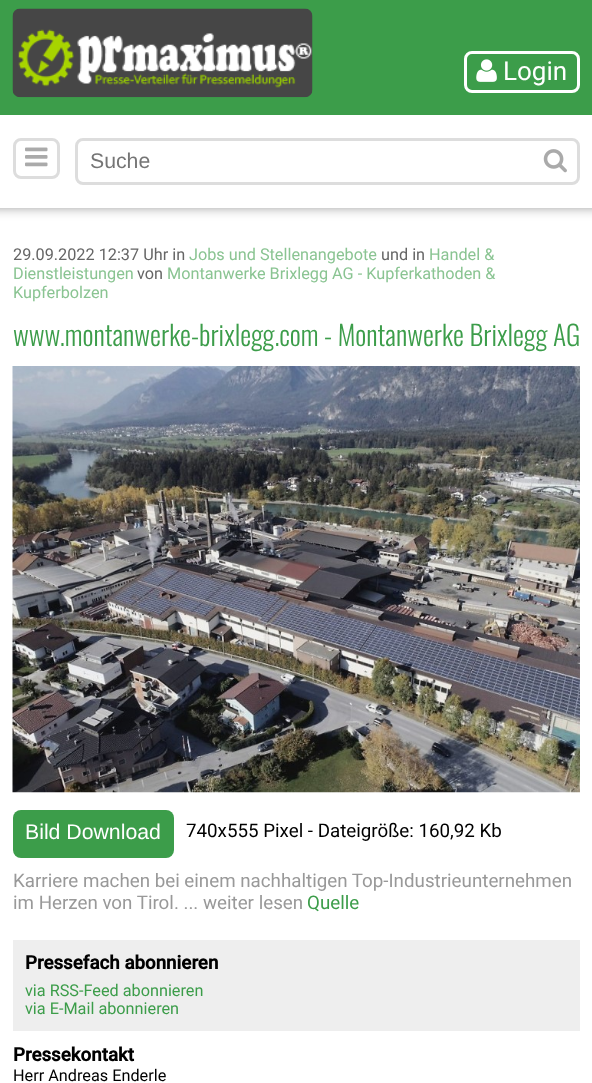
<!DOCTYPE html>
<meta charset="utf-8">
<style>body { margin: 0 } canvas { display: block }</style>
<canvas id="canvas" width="592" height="1083"></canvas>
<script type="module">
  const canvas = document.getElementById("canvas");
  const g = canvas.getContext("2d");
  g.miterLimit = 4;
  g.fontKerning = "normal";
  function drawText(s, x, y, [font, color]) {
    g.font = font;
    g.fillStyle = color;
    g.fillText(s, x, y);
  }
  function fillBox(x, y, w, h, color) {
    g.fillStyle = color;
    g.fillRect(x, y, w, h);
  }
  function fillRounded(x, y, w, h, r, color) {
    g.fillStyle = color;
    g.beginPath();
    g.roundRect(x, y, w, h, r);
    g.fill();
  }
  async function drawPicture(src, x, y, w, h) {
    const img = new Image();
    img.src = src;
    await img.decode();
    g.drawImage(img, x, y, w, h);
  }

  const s1 = ["26px Roboto", "#FFFFFF"];
  const s2 = ["21.25px Liberation Sans", "#757575"];
  const s3 = ["16.25px Roboto", "#666666"];
  const s4 = ["16.25px Roboto", "#8AC492"];
  const s5 = ["300 27.5px Oswald", "#3C9D4A"];
  const s6 = ["21.25px Liberation Sans", "#FFFFFF"];
  const s7 = ["18.75px Roboto", "#000000"];
  const s8 = ["18.75px Roboto", "#999999"];
  const s9 = ["18.75px Roboto", "#3C9D4A"];
  const s10 = ["bold 18.75px Roboto", "#000000"];
  const s11 = ["16.25px Roboto", "#3C9D4A"];
  const s12 = ["16.25px Roboto", "#000000"];

  fillBox(0, 0, 592, 1083, "#FFFFFF");
  g.fillStyle = "rgba(0, 0, 0, 0.58)";
  g.filter = "blur(7px)";
  g.beginPath();
  g.rect(-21, -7, 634, 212);
  g.fill();
  g.filter = "none";
  fillBox(0, 0, 592, 115, "#3C9D4A");
  await drawPicture("pic1.png", 12, 8, 301, 90);
  g.beginPath();
  g.roundRect(465.5, 52.5, 113, 39, 6.5);
  g.strokeStyle = "#FFFFFF";
  g.lineWidth = 3;
  g.stroke();
  await drawPicture("pic2.png", 476, 59, 21, 23);
  drawText("Login", 503, 80, s1);
  fillBox(0, 115, 592, 93, "#FFFFFF");
  g.beginPath();
  g.roundRect(14.5, 139.5, 44, 38, 6.5);
  g.strokeStyle = "#DDDDDD";
  g.stroke();
  await drawPicture("pic3.png", 25, 147, 23, 20);
  g.beginPath();
  g.roundRect(76.5, 139.5, 502, 44, 6.5);
  g.stroke();
  drawText("Suche", 90, 168, s2);
  await drawPicture("pic4.png", 543, 149, 24, 24);
  drawText("29.09.2022 12:37 Uhr in", 13, 260, s3);
  drawText("Jobs und Stellenangebote", 189, 260, s4);
  drawText("und in", 381, 260, s3);
  drawText("Handel &", 429, 260, s4);
  drawText("Dienstleistungen", 13, 279, s4);
  drawText("von", 137, 279, s3);
  drawText("Montanwerke Brixlegg AG - Kupferkathoden &", 167, 279, s4);
  drawText("Kupferbolzen", 13, 298, s4);
  drawText("www.montanwerke-brixlegg.com - Montanwerke Brixlegg AG", 13, 346, s5);
  await drawPicture("pic5.png", 12, 366, 568, 427);
  fillRounded(13, 810, 161, 48, 8, "#3C9D4A");
  drawText("Bild Download", 25, 839, s6);
  drawText("740x555 Pixel - Dateigröße: 160,92 Kb", 186, 837, s7);
  drawText("Karriere machen bei einem nachhaltigen Top-Industrieunternehmen", 13, 887, s8);
  drawText("im Herzen von Tirol. ... weiter lesen", 13, 909, s8);
  drawText("Quelle", 307, 909, s9);
  fillBox(13, 940, 567, 91, "#EEEEEE");
  drawText("Pressefach abonnieren", 25, 969, s10);
  drawText("via RSS-Feed abonnieren", 25, 996, s11);
  drawText("via E-Mail abonnieren", 25, 1014, s11);
  drawText("Pressekontakt", 13, 1061, s10);
  drawText("Herr Andreas Enderle", 13, 1081, s12);
</script>
